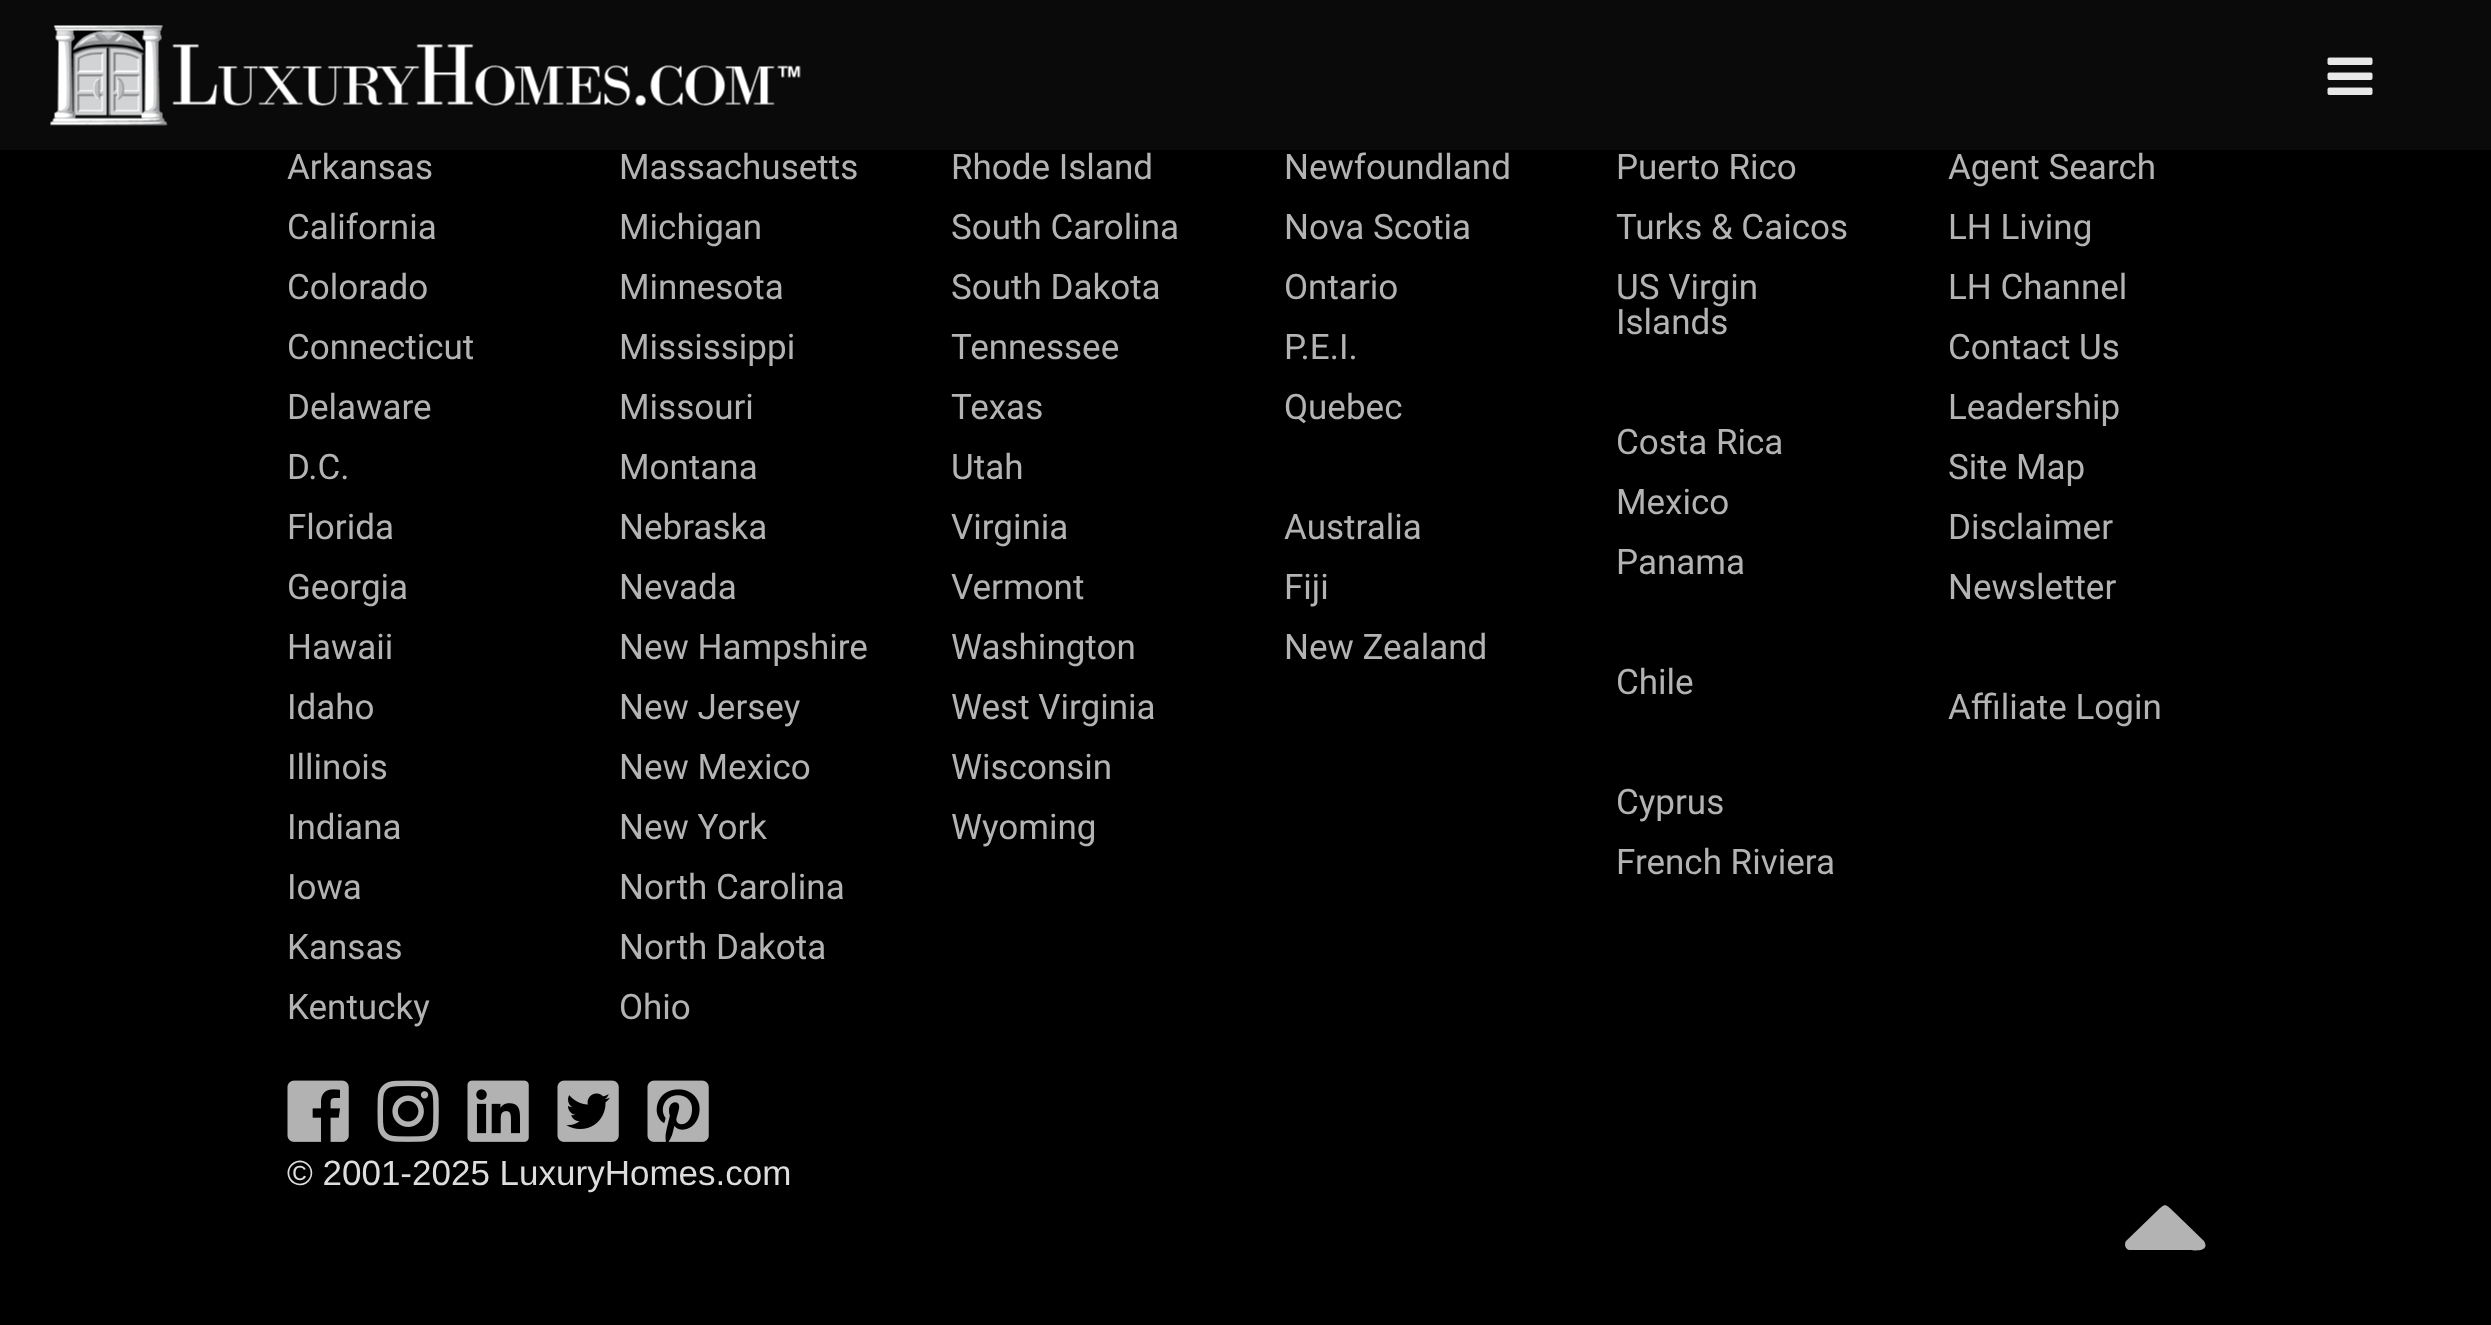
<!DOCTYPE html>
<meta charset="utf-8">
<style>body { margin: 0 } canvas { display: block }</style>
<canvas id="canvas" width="2491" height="1325"></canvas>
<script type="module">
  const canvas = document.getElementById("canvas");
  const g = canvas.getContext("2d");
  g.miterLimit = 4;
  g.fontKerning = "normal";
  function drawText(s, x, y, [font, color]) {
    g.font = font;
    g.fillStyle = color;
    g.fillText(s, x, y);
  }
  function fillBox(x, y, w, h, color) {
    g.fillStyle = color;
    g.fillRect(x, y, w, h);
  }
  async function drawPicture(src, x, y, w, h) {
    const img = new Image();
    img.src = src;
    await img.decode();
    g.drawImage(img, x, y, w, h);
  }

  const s1 = ["35px Roboto", "#B3B3B3"];
  const s2 = ["35px Liberation Sans", "#DDDDDD"];

  fillBox(0, 0, 2491, 1325, "#000000");
  fillBox(0, 0, 2491, 150, "#0A0A0A");
  await drawPicture("pic1.png", 50, 25, 751, 101);
  await drawPicture("pic2.png", 2327, 57, 46, 38);
  drawText("Arkansas", 287, 179, s1);
  drawText("California", 287, 239, s1);
  drawText("Colorado", 287, 299, s1);
  drawText("Connecticut", 287, 359, s1);
  drawText("Delaware", 287, 419, s1);
  drawText("D.C.", 287, 479, s1);
  drawText("Florida", 287, 539, s1);
  drawText("Georgia", 287, 599, s1);
  drawText("Hawaii", 287, 659, s1);
  drawText("Idaho", 287, 719, s1);
  drawText("Illinois", 287, 779, s1);
  drawText("Indiana", 287, 839, s1);
  drawText("Iowa", 287, 899, s1);
  drawText("Kansas", 287, 959, s1);
  drawText("Kentucky", 287, 1019, s1);
  drawText("Massachusetts", 619, 179, s1);
  drawText("Michigan", 619, 239, s1);
  drawText("Minnesota", 619, 299, s1);
  drawText("Mississippi", 619, 359, s1);
  drawText("Missouri", 619, 419, s1);
  drawText("Montana", 619, 479, s1);
  drawText("Nebraska", 619, 539, s1);
  drawText("Nevada", 619, 599, s1);
  drawText("New Hampshire", 619, 659, s1);
  drawText("New Jersey", 619, 719, s1);
  drawText("New Mexico", 619, 779, s1);
  drawText("New York", 619, 839, s1);
  drawText("North Carolina", 619, 899, s1);
  drawText("North Dakota", 619, 959, s1);
  drawText("Ohio", 619, 1019, s1);
  drawText("Rhode Island", 951, 179, s1);
  drawText("South Carolina", 951, 239, s1);
  drawText("South Dakota", 951, 299, s1);
  drawText("Tennessee", 951, 359, s1);
  drawText("Texas", 951, 419, s1);
  drawText("Utah", 951, 479, s1);
  drawText("Virginia", 951, 539, s1);
  drawText("Vermont", 951, 599, s1);
  drawText("Washington", 951, 659, s1);
  drawText("West Virginia", 951, 719, s1);
  drawText("Wisconsin", 951, 779, s1);
  drawText("Wyoming", 951, 839, s1);
  drawText("Newfoundland", 1284, 179, s1);
  drawText("Nova Scotia", 1284, 239, s1);
  drawText("Ontario", 1284, 299, s1);
  drawText("P.E.I.", 1284, 359, s1);
  drawText("Quebec", 1284, 419, s1);
  drawText("Australia", 1284, 539, s1);
  drawText("Fiji", 1284, 599, s1);
  drawText("New Zealand", 1284, 659, s1);
  drawText("Puerto Rico", 1616, 179, s1);
  drawText("Turks & Caicos", 1616, 239, s1);
  drawText("US Virgin", 1616, 299, s1);
  drawText("Islands", 1616, 334, s1);
  drawText("Costa Rica", 1616, 454, s1);
  drawText("Mexico", 1616, 514, s1);
  drawText("Panama", 1616, 574, s1);
  drawText("Chile", 1616, 694, s1);
  drawText("Cyprus", 1616, 814, s1);
  drawText("French Riviera", 1616, 874, s1);
  drawText("Agent Search", 1948, 179, s1);
  drawText("LH Living", 1948, 239, s1);
  drawText("LH Channel", 1948, 299, s1);
  drawText("Contact Us", 1948, 359, s1);
  drawText("Leadership", 1948, 419, s1);
  drawText("Site Map", 1948, 479, s1);
  drawText("Disclaimer", 1948, 539, s1);
  drawText("Newsletter", 1948, 599, s1);
  drawText("Affiliate Login", 1948, 719, s1);
  await drawPicture("pic3.png", 287, 1080, 62, 62);
  await drawPicture("pic4.png", 377, 1080, 62, 62);
  await drawPicture("pic5.png", 467, 1080, 62, 62);
  await drawPicture("pic6.png", 557, 1080, 62, 62);
  await drawPicture("pic7.png", 647, 1080, 62, 62);
  drawText("© 2001-2025 LuxuryHomes.com", 287, 1185, s2);
  g.fillStyle = "#B3B3B3";
  g.beginPath();
  g.moveTo(2204, 1241);
  g.lineTo(2205, 1243);
  g.bezierCurveTo(2209, 1253, 2190, 1250, 2188, 1250);
  g.lineTo(2129, 1250);
  g.bezierCurveTo(2125, 1249, 2124, 1244, 2126, 1241);
  g.lineTo(2156, 1212);
  g.bezierCurveTo(2165, 1203, 2165, 1203, 2174, 1212);
  g.closePath();
  g.fill();
</script>
